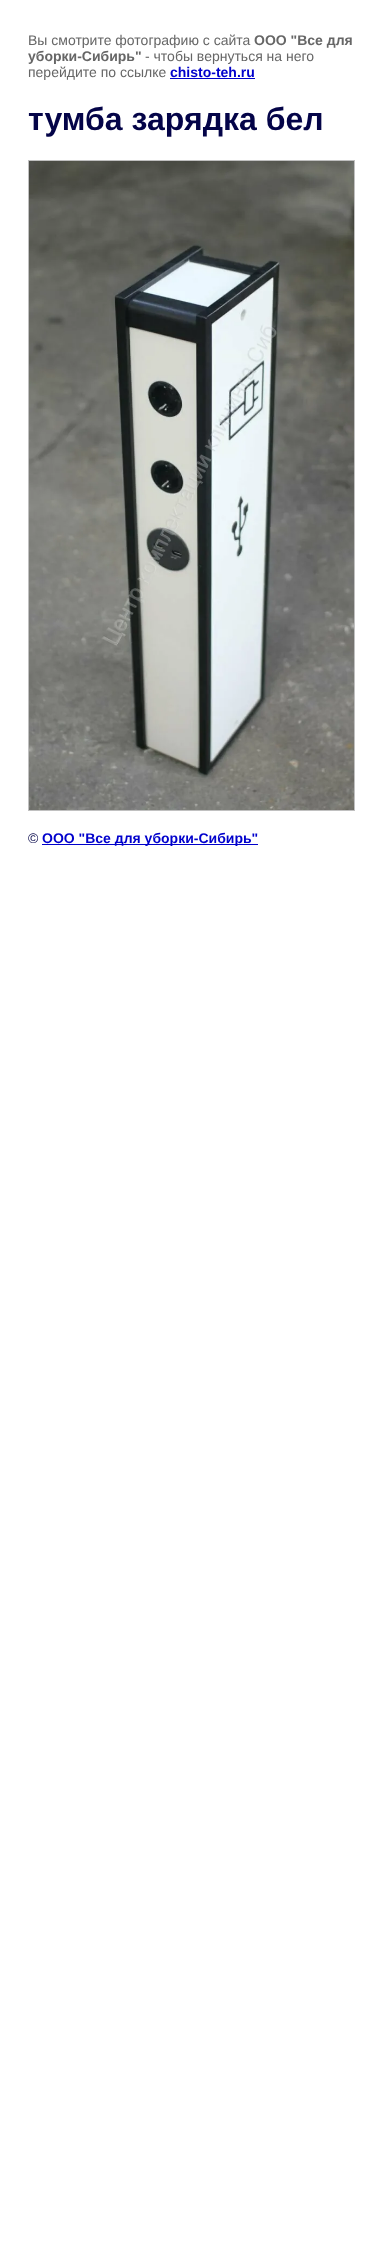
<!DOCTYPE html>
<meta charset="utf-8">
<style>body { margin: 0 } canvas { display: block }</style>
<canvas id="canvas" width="381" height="2242"></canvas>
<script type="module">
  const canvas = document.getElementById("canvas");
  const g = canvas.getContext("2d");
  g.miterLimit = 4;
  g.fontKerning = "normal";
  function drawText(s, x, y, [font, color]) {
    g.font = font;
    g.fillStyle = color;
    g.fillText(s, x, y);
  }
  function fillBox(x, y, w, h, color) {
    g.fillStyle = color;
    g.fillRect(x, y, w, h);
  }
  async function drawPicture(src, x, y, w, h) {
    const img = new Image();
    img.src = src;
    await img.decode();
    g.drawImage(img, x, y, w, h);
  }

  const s1 = ["14px Liberation Sans", "#666666"];
  const s2 = ["bold 14px Liberation Sans", "#666666"];
  const s3 = ["bold 14px Liberation Sans", "#0000CC"];
  const s4 = ["bold 32px Liberation Sans", "#040448"];
  const s5 = ["14px Liberation Sans", "#040448"];

  fillBox(0, 0, 381, 2242, "#FFFFFF");
  drawText("Вы смотрите фотографию с сайта", 28, 45, s1);
  drawText("ООО \"Все для", 254, 45, s2);
  drawText("уборки-Сибирь\"", 28, 61, s2);
  drawText("- чтобы вернуться на него", 145, 61, s1);
  drawText("перейдите по ссылке", 28, 77, s1);
  drawText("chisto-teh.ru", 170, 77, s3);
  fillBox(170, 78, 85, 1, "#0000CC");
  drawText("тумба зарядка бел", 28, 130, s4);
  g.strokeStyle = "#C0C0C0";
  g.strokeRect(28.5, 160.5, 326, 650);
  await drawPicture("pic1.png", 29, 161, 325, 649);
  drawText("©", 28, 843, s5);
  fillBox(42, 844, 216, 1, "#0000CC");
  drawText("ООО \"Все для уборки-Сибирь\"", 42, 843, s3);
</script>
